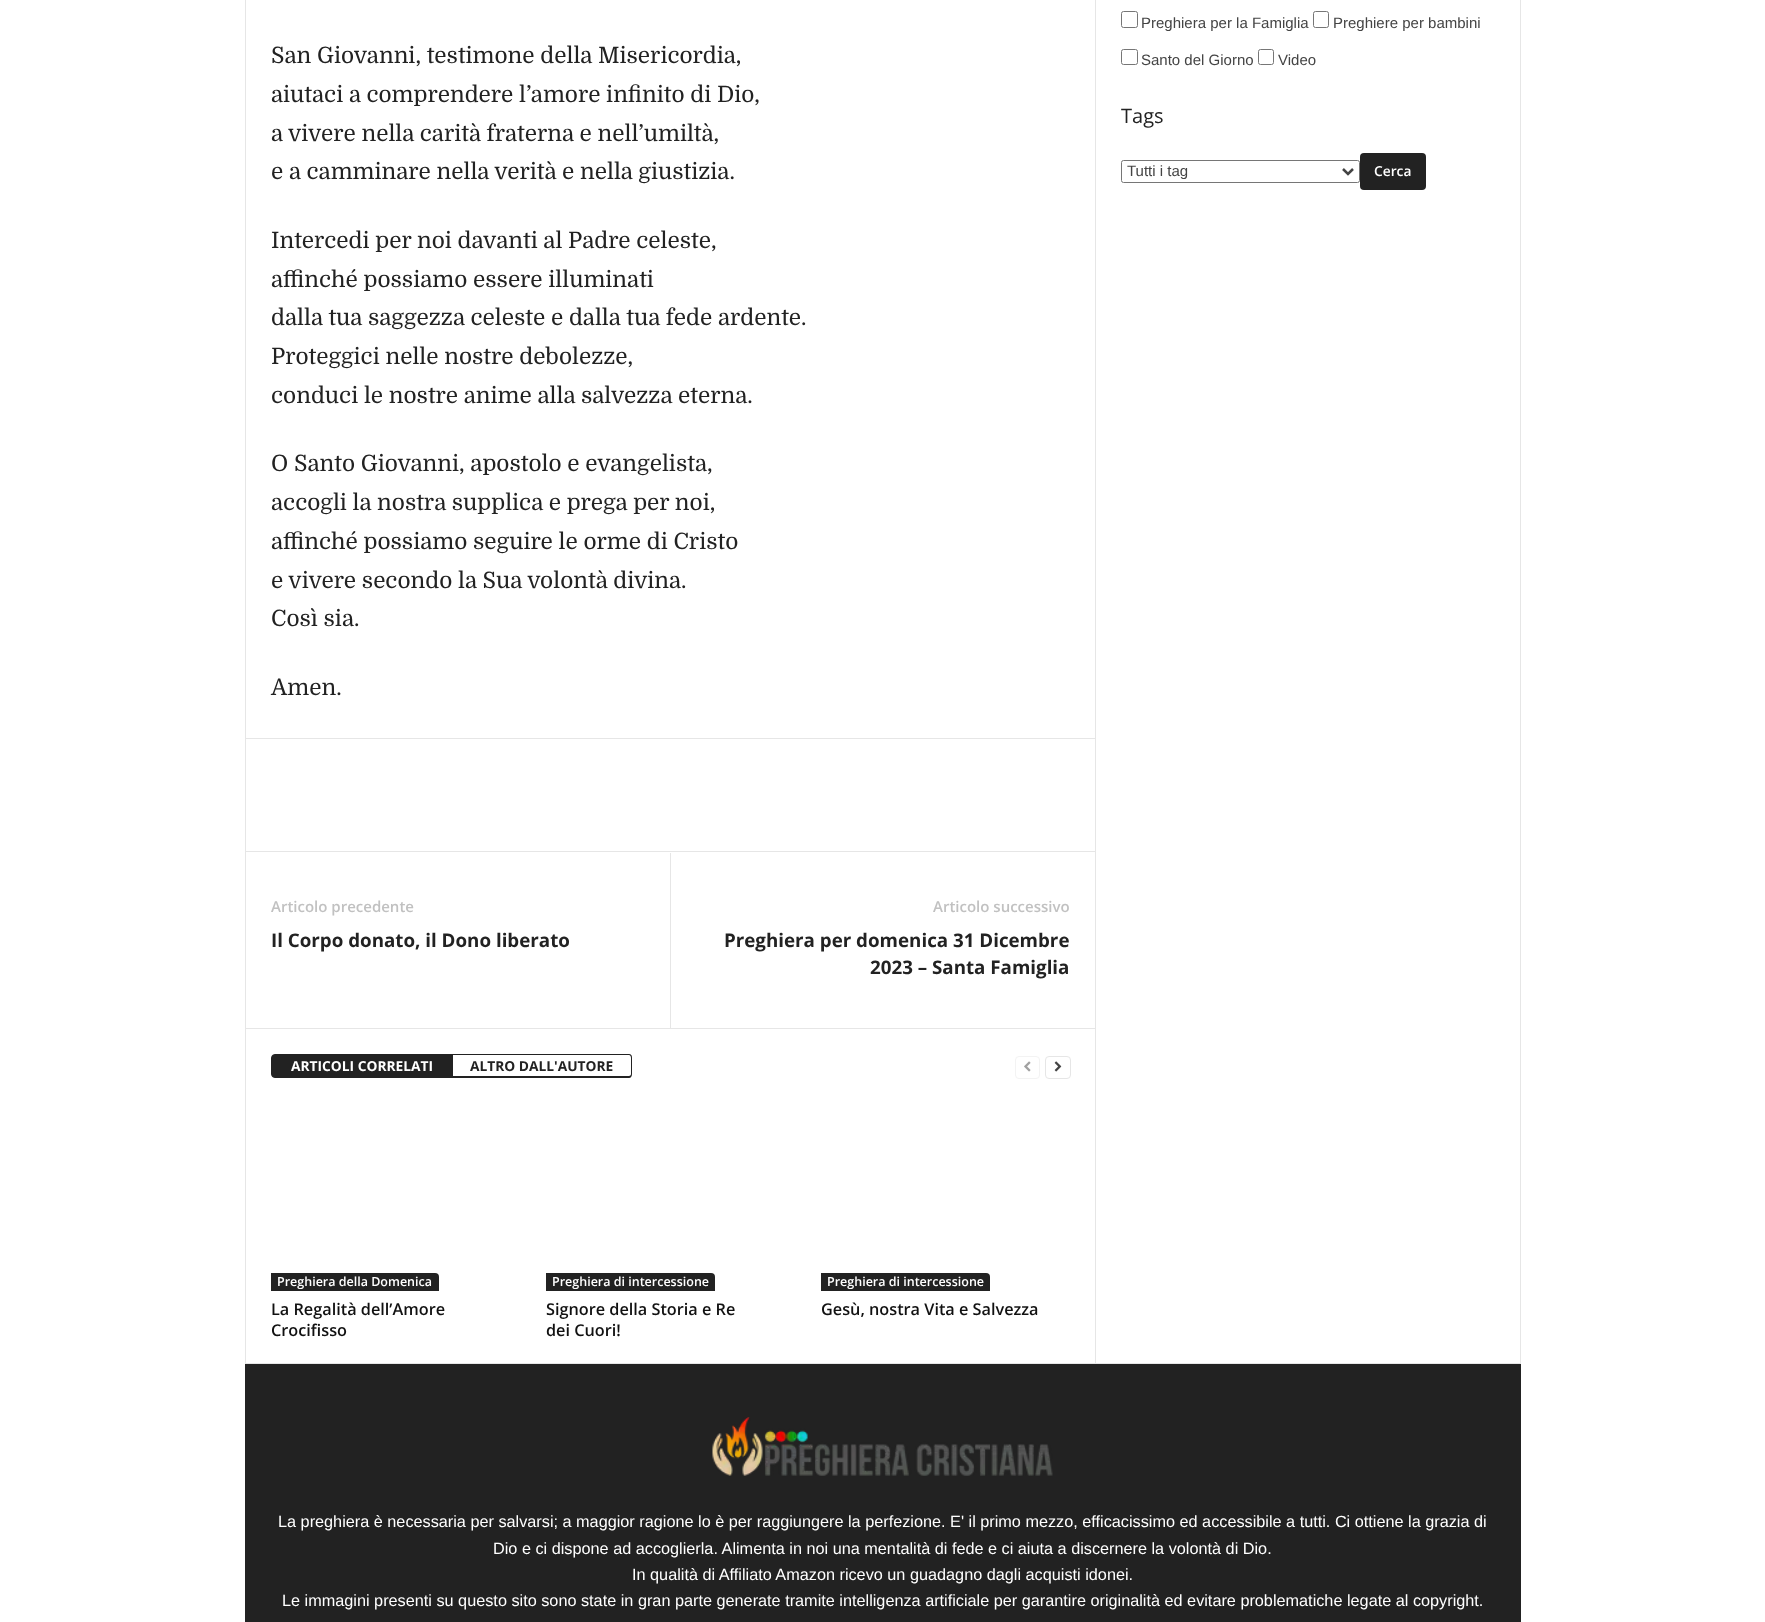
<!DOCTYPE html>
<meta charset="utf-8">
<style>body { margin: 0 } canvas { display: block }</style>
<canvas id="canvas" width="1765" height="1622"></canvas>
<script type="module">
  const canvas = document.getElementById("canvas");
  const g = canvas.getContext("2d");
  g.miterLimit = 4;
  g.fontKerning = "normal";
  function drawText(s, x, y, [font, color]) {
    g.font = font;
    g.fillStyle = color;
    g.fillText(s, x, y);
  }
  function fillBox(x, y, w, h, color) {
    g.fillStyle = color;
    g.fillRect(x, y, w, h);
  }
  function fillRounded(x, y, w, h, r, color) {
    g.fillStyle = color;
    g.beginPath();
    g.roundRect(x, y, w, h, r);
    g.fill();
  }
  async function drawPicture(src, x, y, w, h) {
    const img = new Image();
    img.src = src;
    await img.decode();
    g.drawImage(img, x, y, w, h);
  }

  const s1 = ["22.5px Domine", "#222222"];
  const s2 = ["600 15px Open Sans", "#C1C1C1"];
  const s3 = ["bold 18.75px Open Sans", "#222222"];
  const s4 = ["bold 13.75px Open Sans", "#FFFFFF"];
  const s5 = ["bold 13.75px Open Sans", "#222222"];
  const s6 = ["600 12.5px Open Sans", "#FFFFFF"];
  const s7 = ["600 16.25px Open Sans", "#111111"];
  const s8 = ["15px Liberation Sans", "#444444"];
  const s9 = ["20px Open Sans", "#222222"];
  const s10 = ["600 13.75px Open Sans", "#FFFFFF"];
  const s11 = ["16.25px Liberation Sans", "#FFFFFF"];

  fillBox(0, 0, 1765, 1622, "#FFFFFF");
  fillBox(245, 1363, 1276, 1, "#E6E6E6");
  fillBox(245, 0, 1, 1363, "#E6E6E6");
  drawText("San Giovanni, testimone della Misericordia,", 271, 63, s1);
  drawText("aiutaci a comprendere l’amore infinito di Dio,", 271, 102, s1);
  drawText("a vivere nella carità fraterna e nell’umiltà,", 271, 141, s1);
  drawText("e a camminare nella verità e nella giustizia.", 271, 179, s1);
  drawText("Intercedi per noi davanti al Padre celeste,", 271, 248, s1);
  drawText("affinché possiamo essere illuminati", 271, 287, s1);
  drawText("dalla tua saggezza celeste e dalla tua fede ardente.", 271, 325, s1);
  drawText("Proteggici nelle nostre debolezze,", 271, 364, s1);
  drawText("conduci le nostre anime alla salvezza eterna.", 271, 403, s1);
  drawText("O Santo Giovanni, apostolo e evangelista,", 271, 471, s1);
  drawText("accogli la nostra supplica e prega per noi,", 271, 510, s1);
  drawText("affinché possiamo seguire le orme di Cristo", 271, 549, s1);
  drawText("e vivere secondo la Sua volontà divina.", 271, 588, s1);
  drawText("Così sia.", 271, 626, s1);
  drawText("Amen.", 271, 695, s1);
  fillBox(246, 738, 849, 1, "#E6E6E6");
  fillBox(246, 851, 849, 1, "#E6E6E6");
  drawText("Articolo precedente", 271, 912, s2);
  drawText("Il Corpo donato, il Dono liberato", 271, 947, s3);
  fillBox(670, 853, 1, 175, "#E6E6E6");
  drawText("Articolo successivo", 933, 912, s2);
  drawText("Preghiera per domenica 31 Dicembre", 724, 947, s3);
  drawText("2023 – Santa Famiglia", 870, 974, s3);
  fillBox(246, 1028, 849, 1, "#E6E6E6");
  g.fillStyle = "#222222";
  g.beginPath();
  g.roundRect(271.5, 1054.5, 181, 23, [3.5, 0, 0, 3.5]);
  g.fill();
  g.strokeStyle = "#222222";
  g.stroke();
  drawText("ARTICOLI CORRELATI", 291, 1071, s4);
  g.fillStyle = "#222222";
  g.beginPath();
  g.moveTo(452, 1054);
  g.lineTo(629, 1054);
  g.bezierCurveTo(631, 1054, 632, 1055, 632, 1058);
  g.lineTo(632, 1074);
  g.bezierCurveTo(632, 1076, 631, 1078, 629, 1078);
  g.lineTo(452, 1078);
  g.closePath();
  g.moveTo(452, 1055);
  g.lineTo(629, 1055);
  g.bezierCurveTo(630, 1055, 631, 1056, 631, 1058);
  g.lineTo(631, 1074);
  g.bezierCurveTo(631, 1075, 630, 1076, 629, 1076);
  g.lineTo(452, 1076);
  g.closePath();
  g.fill("evenodd");
  drawText("ALTRO DALL'AUTORE", 470, 1071, s5);
  g.beginPath();
  g.roundRect(1015.5, 1056.5, 24, 22, 3.5);
  g.strokeStyle = "#F3F3F3";
  g.stroke();
  await drawPicture("pic1.png", 1024, 1061, 7, 11);
  g.beginPath();
  g.roundRect(1045.5, 1056.5, 25, 22, 3.5);
  g.strokeStyle = "#E6E6E6";
  g.stroke();
  await drawPicture("pic2.png", 1054, 1061, 8, 11);
  g.beginPath();
  g.roundRect(271, 1273, 168, 18, [0, 4, 0, 0]);
  g.fill();
  drawText("Preghiera della Domenica", 277, 1286, s6);
  drawText("La Regalità dell’Amore", 271, 1315, s7);
  drawText("Crocifisso", 271, 1336, s7);
  g.fillStyle = "#222222";
  g.beginPath();
  g.roundRect(546, 1273, 169, 18, [0, 4, 0, 0]);
  g.fill();
  drawText("Preghiera di intercessione", 552, 1286, s6);
  drawText("Signore della Storia e Re", 546, 1315, s7);
  drawText("dei Cuori!", 546, 1336, s7);
  g.fillStyle = "#222222";
  g.beginPath();
  g.roundRect(821, 1273, 169, 18, [0, 4, 0, 0]);
  g.fill();
  drawText("Preghiera di intercessione", 827, 1286, s6);
  drawText("Gesù, nostra Vita e Salvezza", 821, 1315, s7);
  fillBox(1095, 0, 1, 1363, "#E6E6E6");
  g.beginPath();
  g.roundRect(1121.5, 11.5, 16, 16, 2);
  g.strokeStyle = "#767676";
  g.stroke();
  drawText("Preghiera per la Famiglia", 1141, 28, s8);
  g.beginPath();
  g.roundRect(1313.5, 11.5, 15, 16, 2);
  g.stroke();
  drawText("Preghiere per bambini", 1333, 28, s8);
  g.beginPath();
  g.roundRect(1121.5, 49.5, 16, 15, 2);
  g.stroke();
  drawText("Santo del Giorno", 1141, 65, s8);
  g.beginPath();
  g.roundRect(1258.5, 49.5, 15, 15, 2);
  g.stroke();
  drawText("Video", 1278, 65, s8);
  drawText("Tags", 1121, 123, s9);
  g.beginPath();
  g.roundRect(1121.5, 160.5, 238, 22, 2);
  g.stroke();
  g.beginPath();
  g.moveTo(1343, 169);
  g.lineTo(1348, 174);
  g.lineTo(1353, 169);
  g.strokeStyle = "#444444";
  g.lineWidth = 2.5;
  g.stroke();
  drawText("Tutti i tag", 1127, 176, s8);
  fillRounded(1360, 153, 66, 37, 4, "#222222");
  drawText("Cerca", 1374, 176, s10);
  fillBox(1520, 0, 1, 1363, "#E6E6E6");
  fillBox(245, 1364, 1276, 258, "#222222");
  await drawPicture("pic3.png", 712, 1417, 341, 59);
  drawText("La preghiera è necessaria per salvarsi; a maggior ragione lo è per raggiungere la perfezione. E' il primo mezzo, efficacissimo ed accessibile a tutti. Ci ottiene la grazia di", 278, 1527, s11);
  drawText("Dio e ci dispone ad accoglierla. Alimenta in noi una mentalità di fede e ci aiuta a discernere la volontà di Dio.", 493, 1554, s11);
  drawText("In qualità di Affiliato Amazon ricevo un guadagno dagli acquisti idonei.", 632, 1580, s11);
  drawText("Le immagini presenti su questo sito sono state in gran parte generate tramite intelligenza artificiale per garantire originalità ed evitare problematiche legate al copyright.", 282, 1606, s11);
</script>
